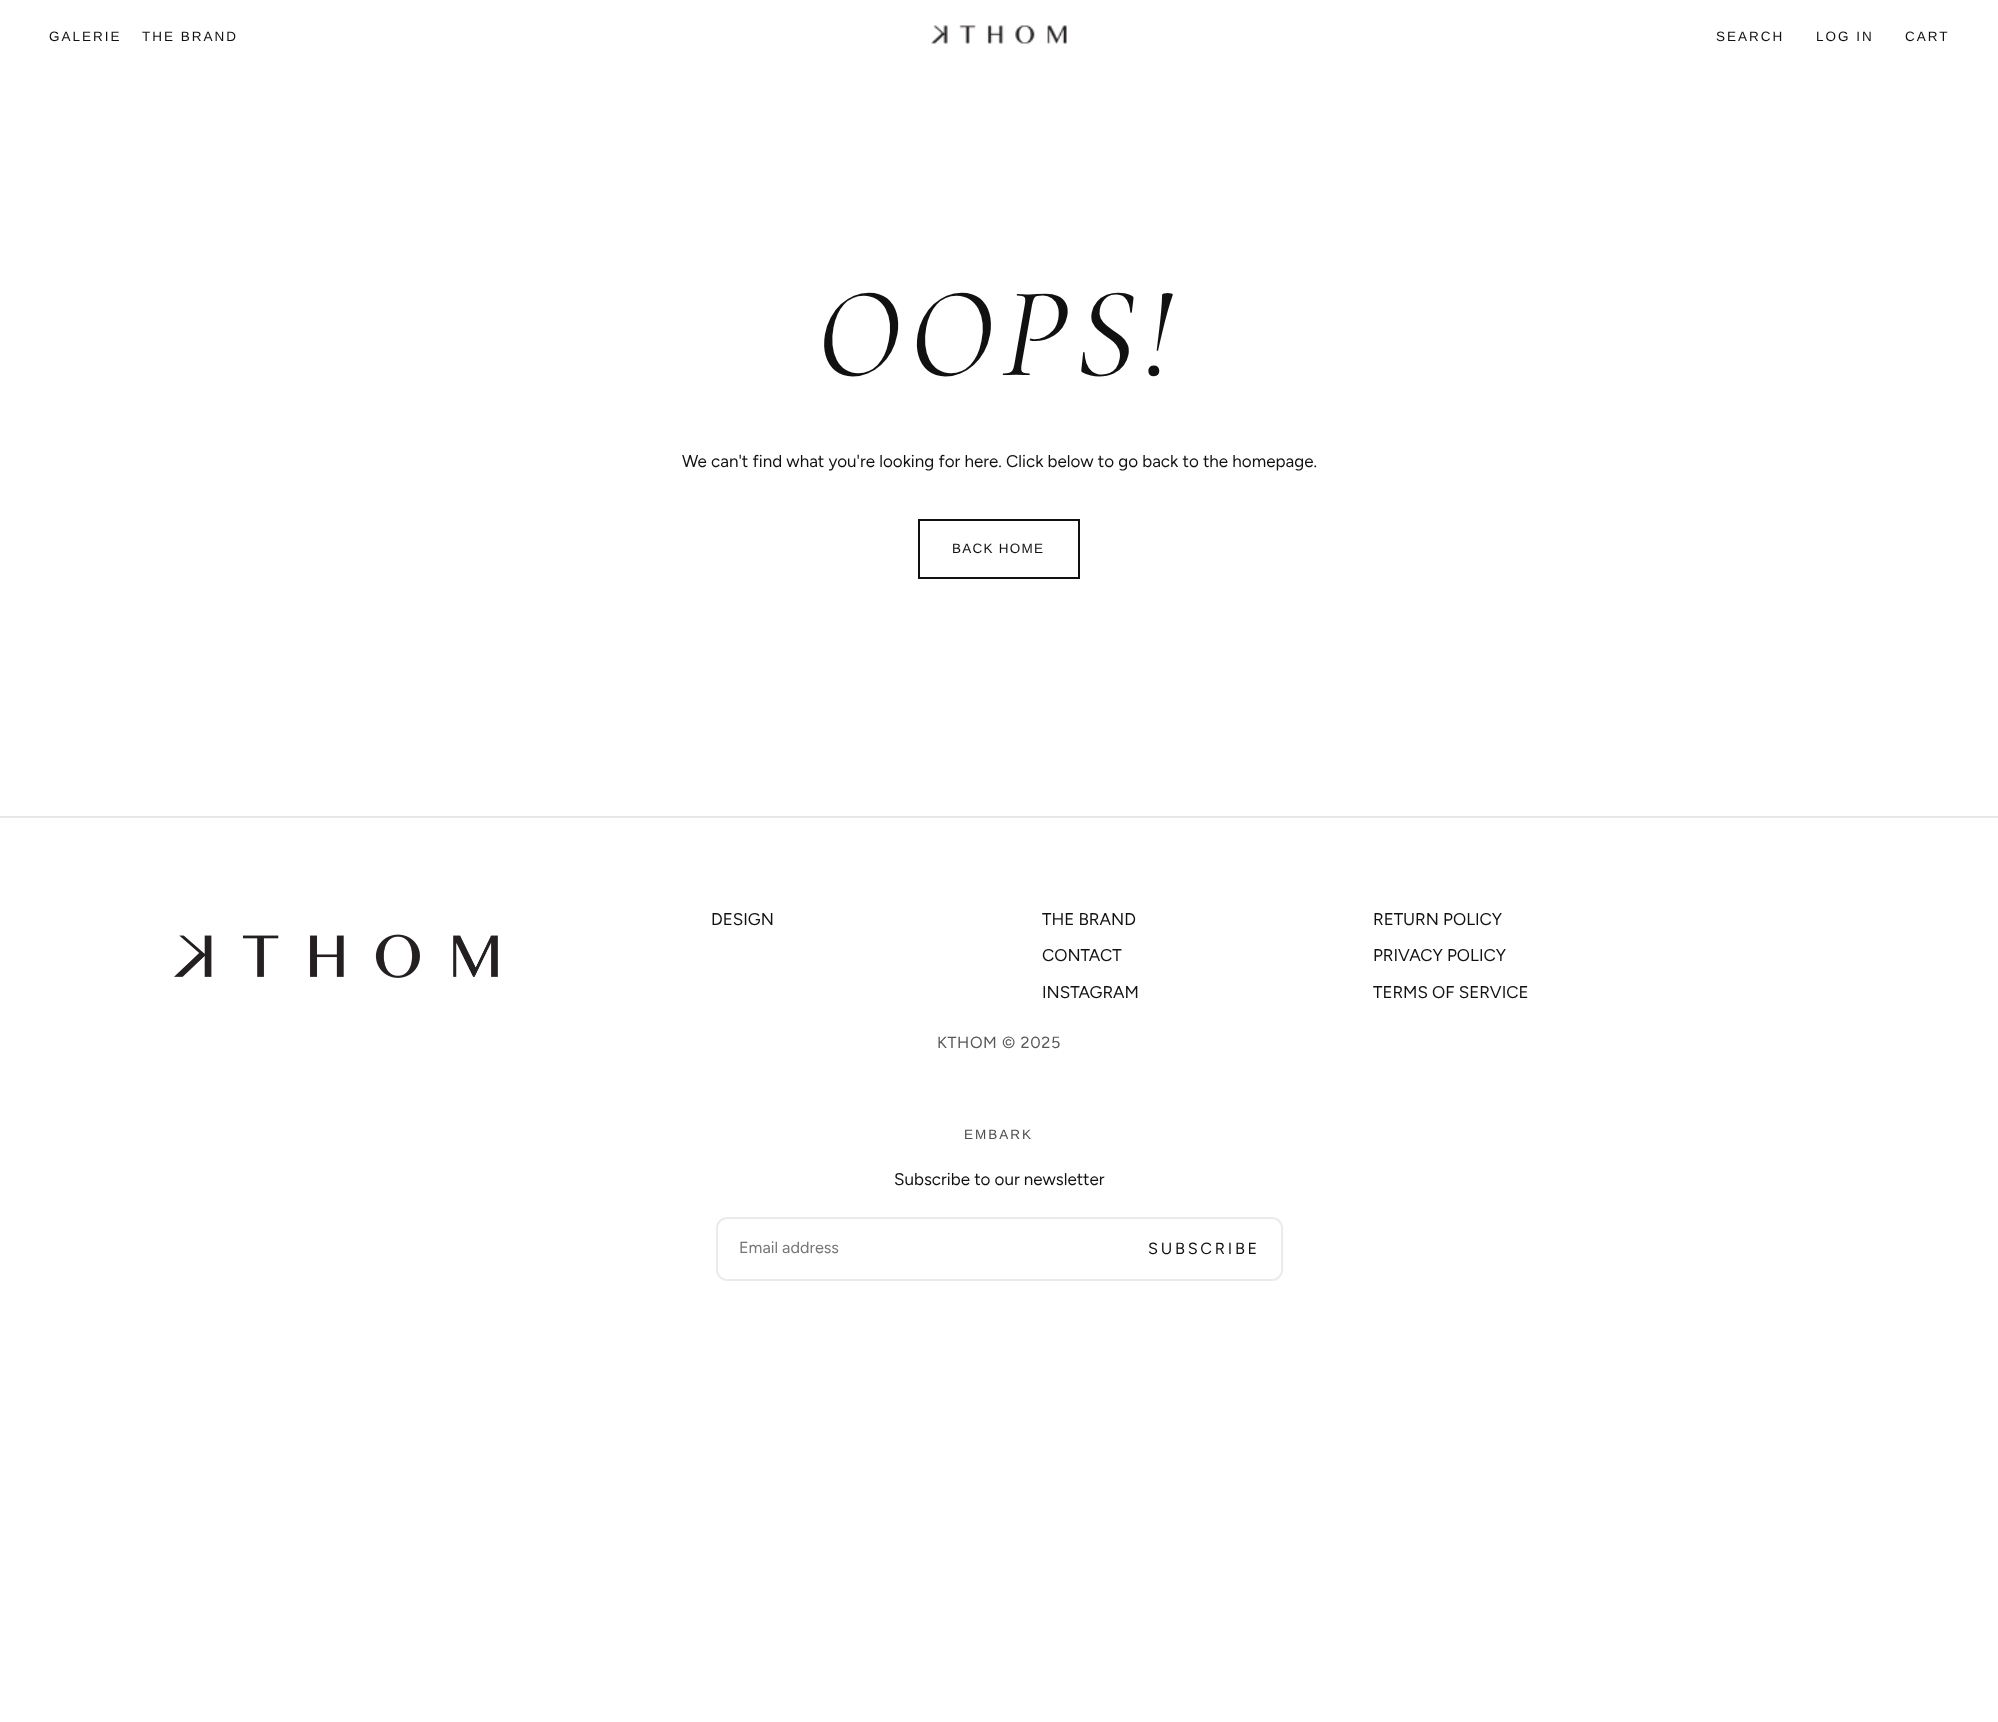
<!DOCTYPE html>
<meta charset="utf-8">
<style>body { margin: 0 } canvas { display: block }</style>
<canvas id="canvas" width="1998" height="1722"></canvas>
<script type="module">
  const canvas = document.getElementById("canvas");
  const g = canvas.getContext("2d");
  g.miterLimit = 4;
  g.fontKerning = "normal";
  function drawText(s, x, y, [font, color]) {
    g.font = font;
    g.fillStyle = color;
    g.fillText(s, x, y);
  }
  function fillBox(x, y, w, h, color) {
    g.fillStyle = color;
    g.fillRect(x, y, w, h);
  }
  async function drawPicture(src, x, y, w, h) {
    const img = new Image();
    img.src = src;
    await img.decode();
    g.drawImage(img, x, y, w, h);
  }

  const s1 = ["13.5px Liberation Sans", "#111111"];
  const s2 = ["italic 129.5px Cormorant", "#111111"];
  const s3 = ["17px Figtree", "#111111"];
  const s4 = ["16.25px Figtree", "#585858"];
  const s5 = ["13.5px Liberation Sans", "#4D4D4D"];
  const s6 = ["16.25px Figtree", "#757575"];
  const s7 = ["16.25px Figtree", "#111111"];

  fillBox(0, 0, 1998, 1722, "#FFFFFF");
  g.letterSpacing = "2px";
  drawText("GALERIE", 49, 41, s1);
  drawText("THE BRAND", 142, 41, s1);
  await drawPicture("pic1.png", 931, 25, 136, 19);
  drawText("SEARCH", 1716, 41, s1);
  drawText("LOG IN", 1816, 41, s1);
  drawText("CART", 1905, 41, s1);
  g.letterSpacing = "8.5px";
  drawText("OOPS!", 816, 375, s2);
  g.letterSpacing = "0px";
  drawText("We can't find what you're looking for here. Click below to go back to the homepage.", 682, 467, s3);
  g.strokeStyle = "#111111";
  g.lineWidth = 2;
  g.strokeRect(919, 520, 160, 58);
  g.letterSpacing = "1.25px";
  drawText("BACK HOME", 952, 553, s1);
  fillBox(0, 816, 1998, 2, "#E7E7E7");
  await drawPicture("pic2.png", 174, 934, 324, 44);
  g.letterSpacing = "0px";
  drawText("DESIGN", 711, 925, s3);
  drawText("THE BRAND", 1042, 925, s3);
  drawText("CONTACT", 1042, 961, s3);
  drawText("INSTAGRAM", 1042, 998, s3);
  drawText("RETURN POLICY", 1373, 925, s3);
  drawText("PRIVACY POLICY", 1373, 961, s3);
  drawText("TERMS OF SERVICE", 1373, 998, s3);
  g.letterSpacing = "0.6px";
  drawText("KTHOM © 2025", 937, 1048, s4);
  g.letterSpacing = "2px";
  drawText("EMBARK", 964, 1139, s5);
  g.letterSpacing = "0px";
  drawText("Subscribe to our newsletter", 894, 1185, s3);
  g.beginPath();
  g.roundRect(717, 1218, 565, 62, 10);
  g.strokeStyle = "#EBEBEB";
  g.stroke();
  drawText("Email address", 739, 1253, s6);
  g.letterSpacing = "2.75px";
  drawText("SUBSCRIBE", 1148, 1254, s7);
</script>
